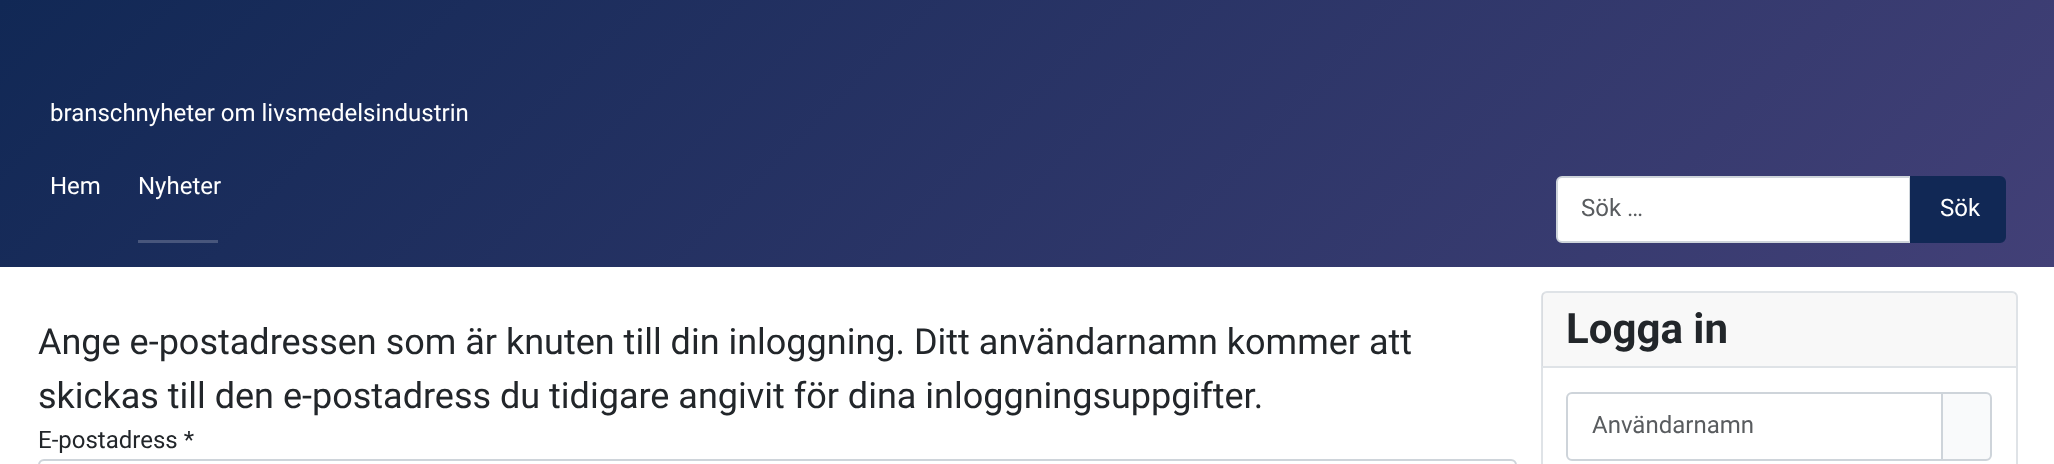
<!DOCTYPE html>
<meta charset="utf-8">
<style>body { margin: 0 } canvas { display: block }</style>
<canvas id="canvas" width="2054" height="464"></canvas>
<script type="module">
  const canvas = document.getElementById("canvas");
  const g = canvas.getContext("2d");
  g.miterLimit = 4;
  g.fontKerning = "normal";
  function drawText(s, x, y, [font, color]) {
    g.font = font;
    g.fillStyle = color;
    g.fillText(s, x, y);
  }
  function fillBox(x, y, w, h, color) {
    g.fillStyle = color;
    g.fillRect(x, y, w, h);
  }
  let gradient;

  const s1 = ["24px Roboto", "#FFFFFF"];
  const s2 = ["24px Roboto", "#595C5F"];
  const s3 = ["36px Roboto", "#22262A"];
  const s4 = ["24px Roboto", "#22262A"];
  const s5 = ["bold 42px Roboto", "#22262A"];

  fillBox(0, 0, 2054, 464, "#FFFFFF");
  gradient = g.createLinearGradient(447, -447, 1608, 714);
  gradient.addColorStop(0, "#112855");
  gradient.addColorStop(1, "#424077");
  g.fillStyle = gradient;
  g.fillRect(0, 0, 2054, 267);
  drawText("branschnyheter om livsmedelsindustrin", 50, 121, s1);
  drawText("Hem", 50, 194, s1);
  drawText("Nyheter", 138, 194, s1);
  fillBox(138, 240, 80, 3, "#48567C");
  g.fillStyle = "#FFFFFF";
  g.beginPath();
  g.roundRect(1557, 177, 353, 65, [5, 0, 0, 5]);
  g.fill();
  g.strokeStyle = "#CED4DA";
  g.lineWidth = 2;
  g.stroke();
  drawText("Sök …", 1581, 216, s2);
  g.fillStyle = "#112855";
  g.beginPath();
  g.roundRect(1911, 177, 94, 65, [0, 5, 5, 0]);
  g.fill();
  g.strokeStyle = "#112855";
  g.stroke();
  drawText("Sök", 1940, 216, s1);
  drawText("Ange e-postadressen som är knuten till din inloggning. Ditt användarnamn kommer att", 38, 354, s3);
  drawText("skickas till den e-postadress du tidigare angivit för dina inloggningsuppgifter.", 38, 408, s3);
  drawText("E-postadress *", 38, 448, s4);
  g.beginPath();
  g.roundRect(39, 460, 1477, 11, 5);
  g.strokeStyle = "#CED4DA";
  g.stroke();
  g.beginPath();
  g.roundRect(1542, 292, 475, 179, 5);
  g.strokeStyle = "#DFE3E7";
  g.stroke();
  fillBox(1542, 293, 474, 73, "rgba(34, 38, 42, 0.03)");
  fillBox(1542, 366, 474, 2, "#DFE3E7");
  drawText("Logga in", 1566, 343, s5);
  g.fillStyle = "#F9FAFB";
  g.beginPath();
  g.roundRect(1942, 393, 49, 67, [0, 5, 5, 0]);
  g.fill();
  g.strokeStyle = "#CED4DA";
  g.stroke();
  g.beginPath();
  g.roundRect(1567, 393, 375, 67, [5, 0, 0, 5]);
  g.stroke();
  drawText("Användarnamn", 1592, 433, s2);
</script>
